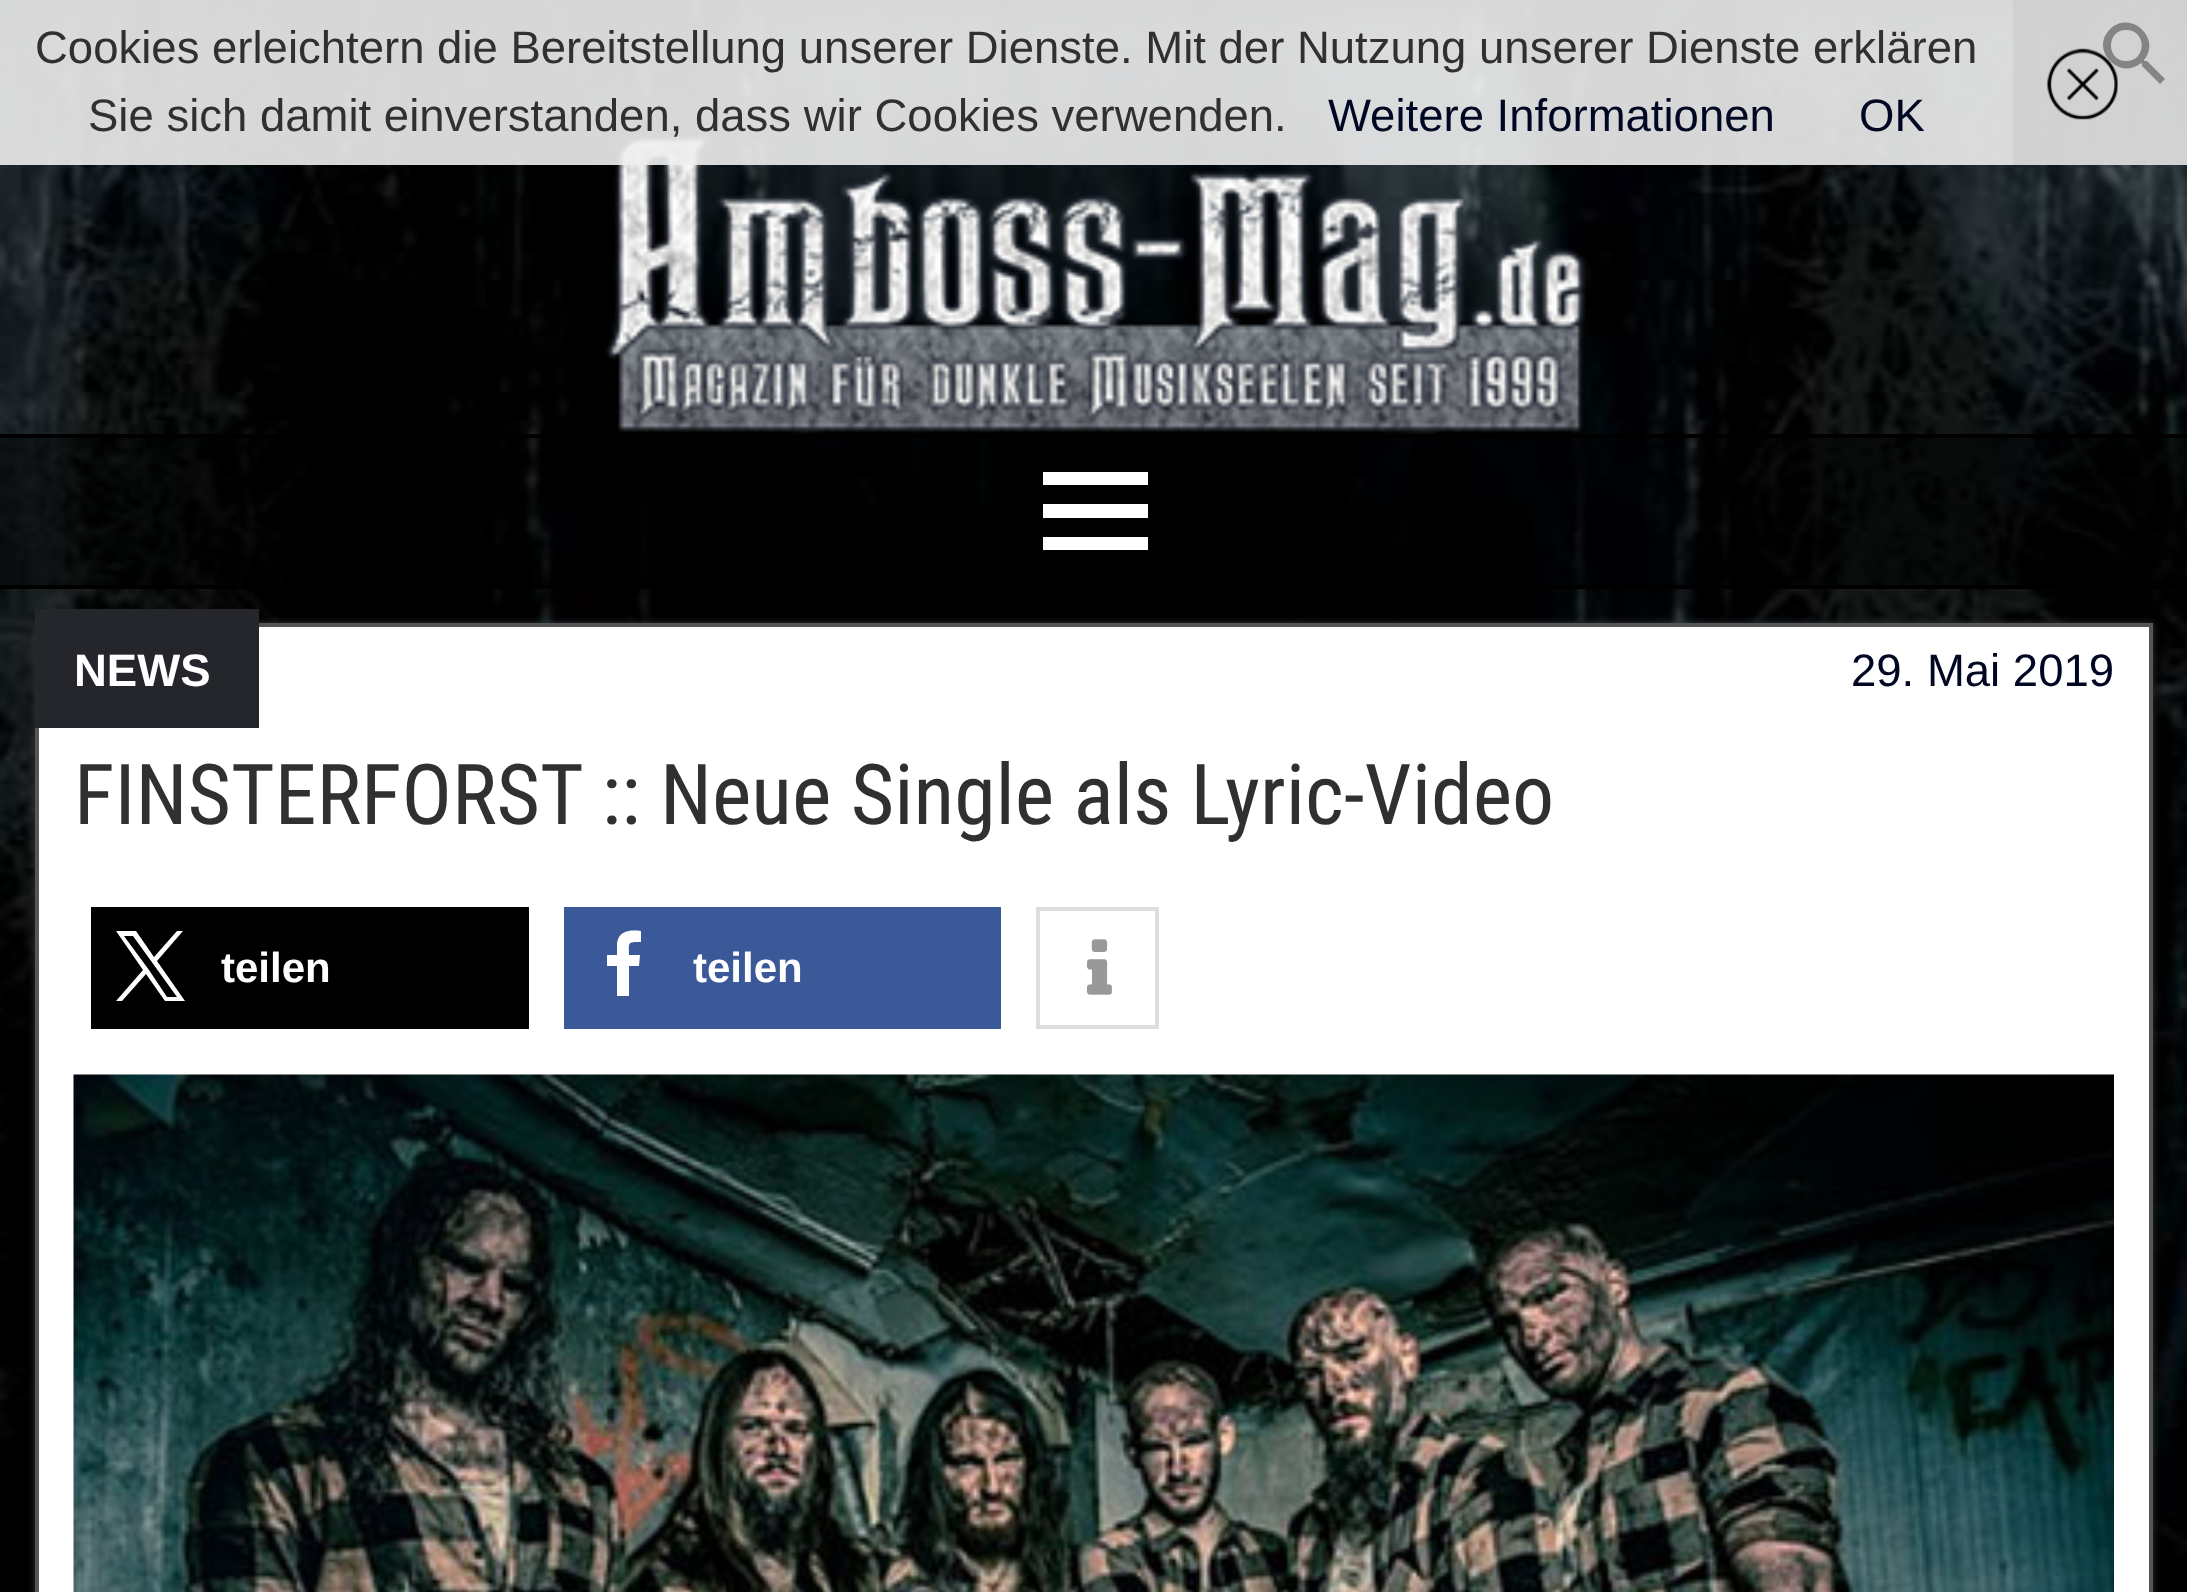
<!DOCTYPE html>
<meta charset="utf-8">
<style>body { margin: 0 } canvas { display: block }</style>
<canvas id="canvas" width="2187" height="1592"></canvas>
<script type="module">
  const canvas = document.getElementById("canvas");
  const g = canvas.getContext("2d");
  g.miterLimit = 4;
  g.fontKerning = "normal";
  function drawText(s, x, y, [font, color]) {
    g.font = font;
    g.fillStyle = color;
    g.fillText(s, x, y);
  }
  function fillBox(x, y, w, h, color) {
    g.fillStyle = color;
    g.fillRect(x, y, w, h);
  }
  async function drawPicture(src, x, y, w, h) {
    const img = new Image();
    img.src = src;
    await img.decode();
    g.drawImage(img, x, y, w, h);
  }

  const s1 = ["45.5px Liberation Sans", "#303030"];
  const s2 = ["45.5px Liberation Sans", "#000723"];
  const s3 = ["bold 45.5px Liberation Sans", "#FFFFFF"];
  const s4 = ["84px Roboto Condensed", "#303030"];
  const s5 = ["bold 42px Liberation Sans", "#FFFFFF"];

  fillBox(0, 0, 2187, 1592, "#FFFFFF");
  await drawPicture("pic1.png", 0, 0, 2187, 1592);
  await drawPicture("pic3.png", 605, 133, 981, 301);
  fillBox(0, 0, 2187, 165, "rgba(238, 238, 238, 0.9)");
  drawText("Cookies erleichtern die Bereitstellung unserer Dienste. Mit der Nutzung unserer Dienste erklären", 35, 63, s1);
  drawText("Sie sich damit einverstanden, dass wir Cookies verwenden.", 88, 131, s1);
  drawText("Weitere Informationen", 1328, 131, s2);
  drawText("OK", 1859, 131, s2);
  fillBox(2013, 0, 174, 165, "rgba(204, 204, 204, 0.6)");
  await drawPicture("pic2.png", 2047, 48, 71, 72);
  g.fillStyle = "#848484";
  g.beginPath();
  g.moveTo(2147, 61);
  g.lineTo(2144, 61);
  g.lineTo(2144, 60);
  g.bezierCurveTo(2162, 39, 2131, 9, 2110, 29);
  g.bezierCurveTo(2089, 50, 2120, 81, 2141, 63);
  g.lineTo(2142, 64);
  g.lineTo(2142, 66);
  g.lineTo(2160, 84);
  g.lineTo(2165, 79);
  g.closePath();
  g.moveTo(2126, 61);
  g.bezierCurveTo(2106, 61, 2106, 30, 2126, 30);
  g.bezierCurveTo(2147, 30, 2147, 61, 2126, 61);
  g.closePath();
  g.fill();
  fillBox(0, 434, 2187, 4, "#000000");
  fillBox(0, 438, 2187, 147, "rgba(0, 0, 0, 0.5)");
  fillBox(0, 585, 2160, 4, "#000000");
  g.fillStyle = "#FFFFFF";
  g.beginPath();
  g.moveTo(1043, 550);
  g.lineTo(1043, 537);
  g.lineTo(1148, 537);
  g.lineTo(1148, 550);
  g.closePath();
  g.moveTo(1043, 472);
  g.lineTo(1148, 472);
  g.lineTo(1148, 485);
  g.lineTo(1043, 485);
  g.closePath();
  g.moveTo(1043, 518);
  g.lineTo(1043, 504);
  g.lineTo(1148, 504);
  g.lineTo(1148, 518);
  g.closePath();
  g.fill();
  g.fillStyle = "#333333";
  g.filter = "blur(3.5px)";
  g.beginPath();
  g.rect(35, 623, 2118, 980);
  g.fill();
  g.filter = "none";
  g.fillStyle = "#FFFFFF";
  g.beginPath();
  g.rect(37, 625, 2114, 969);
  g.fill();
  g.strokeStyle = "#555555";
  g.lineWidth = 4;
  g.stroke();
  fillBox(35, 609, 224, 119, "#25262B");
  drawText("NEWS", 74, 686, s3);
  drawText("29. Mai 2019", 1851, 686, s2);
  drawText("FINSTERFORST :: Neue Single als Lyric-Video", 74, 824, s4);
  fillBox(91, 907, 438, 122, "#000000");
  g.fillStyle = "#FFFFFF";
  g.beginPath();
  g.moveTo(157, 961);
  g.lineTo(183, 931);
  g.lineTo(177, 931);
  g.lineTo(154, 957);
  g.lineTo(136, 931);
  g.lineTo(116, 931);
  g.lineTo(143, 970);
  g.lineTo(116, 1001);
  g.lineTo(122, 1001);
  g.lineTo(146, 974);
  g.lineTo(165, 1001);
  g.lineTo(185, 1001);
  g.closePath();
  g.moveTo(149, 970);
  g.lineTo(124, 936);
  g.lineTo(133, 936);
  g.lineTo(177, 997);
  g.lineTo(167, 997);
  g.closePath();
  g.fill();
  drawText("teilen", 221, 982, s5);
  fillBox(564, 907, 437, 122, "#3B5998");
  g.fillStyle = "#FFFFFF";
  g.beginPath();
  g.moveTo(641, 931);
  g.lineTo(641, 942);
  g.bezierCurveTo(627, 942, 629, 942, 629, 955);
  g.lineTo(640, 955);
  g.lineTo(639, 966);
  g.lineTo(629, 966);
  g.lineTo(629, 996);
  g.lineTo(617, 996);
  g.lineTo(617, 966);
  g.lineTo(607, 966);
  g.lineTo(607, 955);
  g.lineTo(617, 955);
  g.lineTo(617, 943);
  g.bezierCurveTo(619, 930, 631, 930, 641, 931);
  g.closePath();
  g.fill();
  drawText("teilen", 693, 982, s5);
  g.strokeStyle = "#DDDDDD";
  g.strokeRect(1038, 909, 119, 118);
  await drawPicture("pic4.png", 1087, 939, 25, 56);
  await drawPicture("pic5.png", 73, 1074, 2041, 518);
</script>
